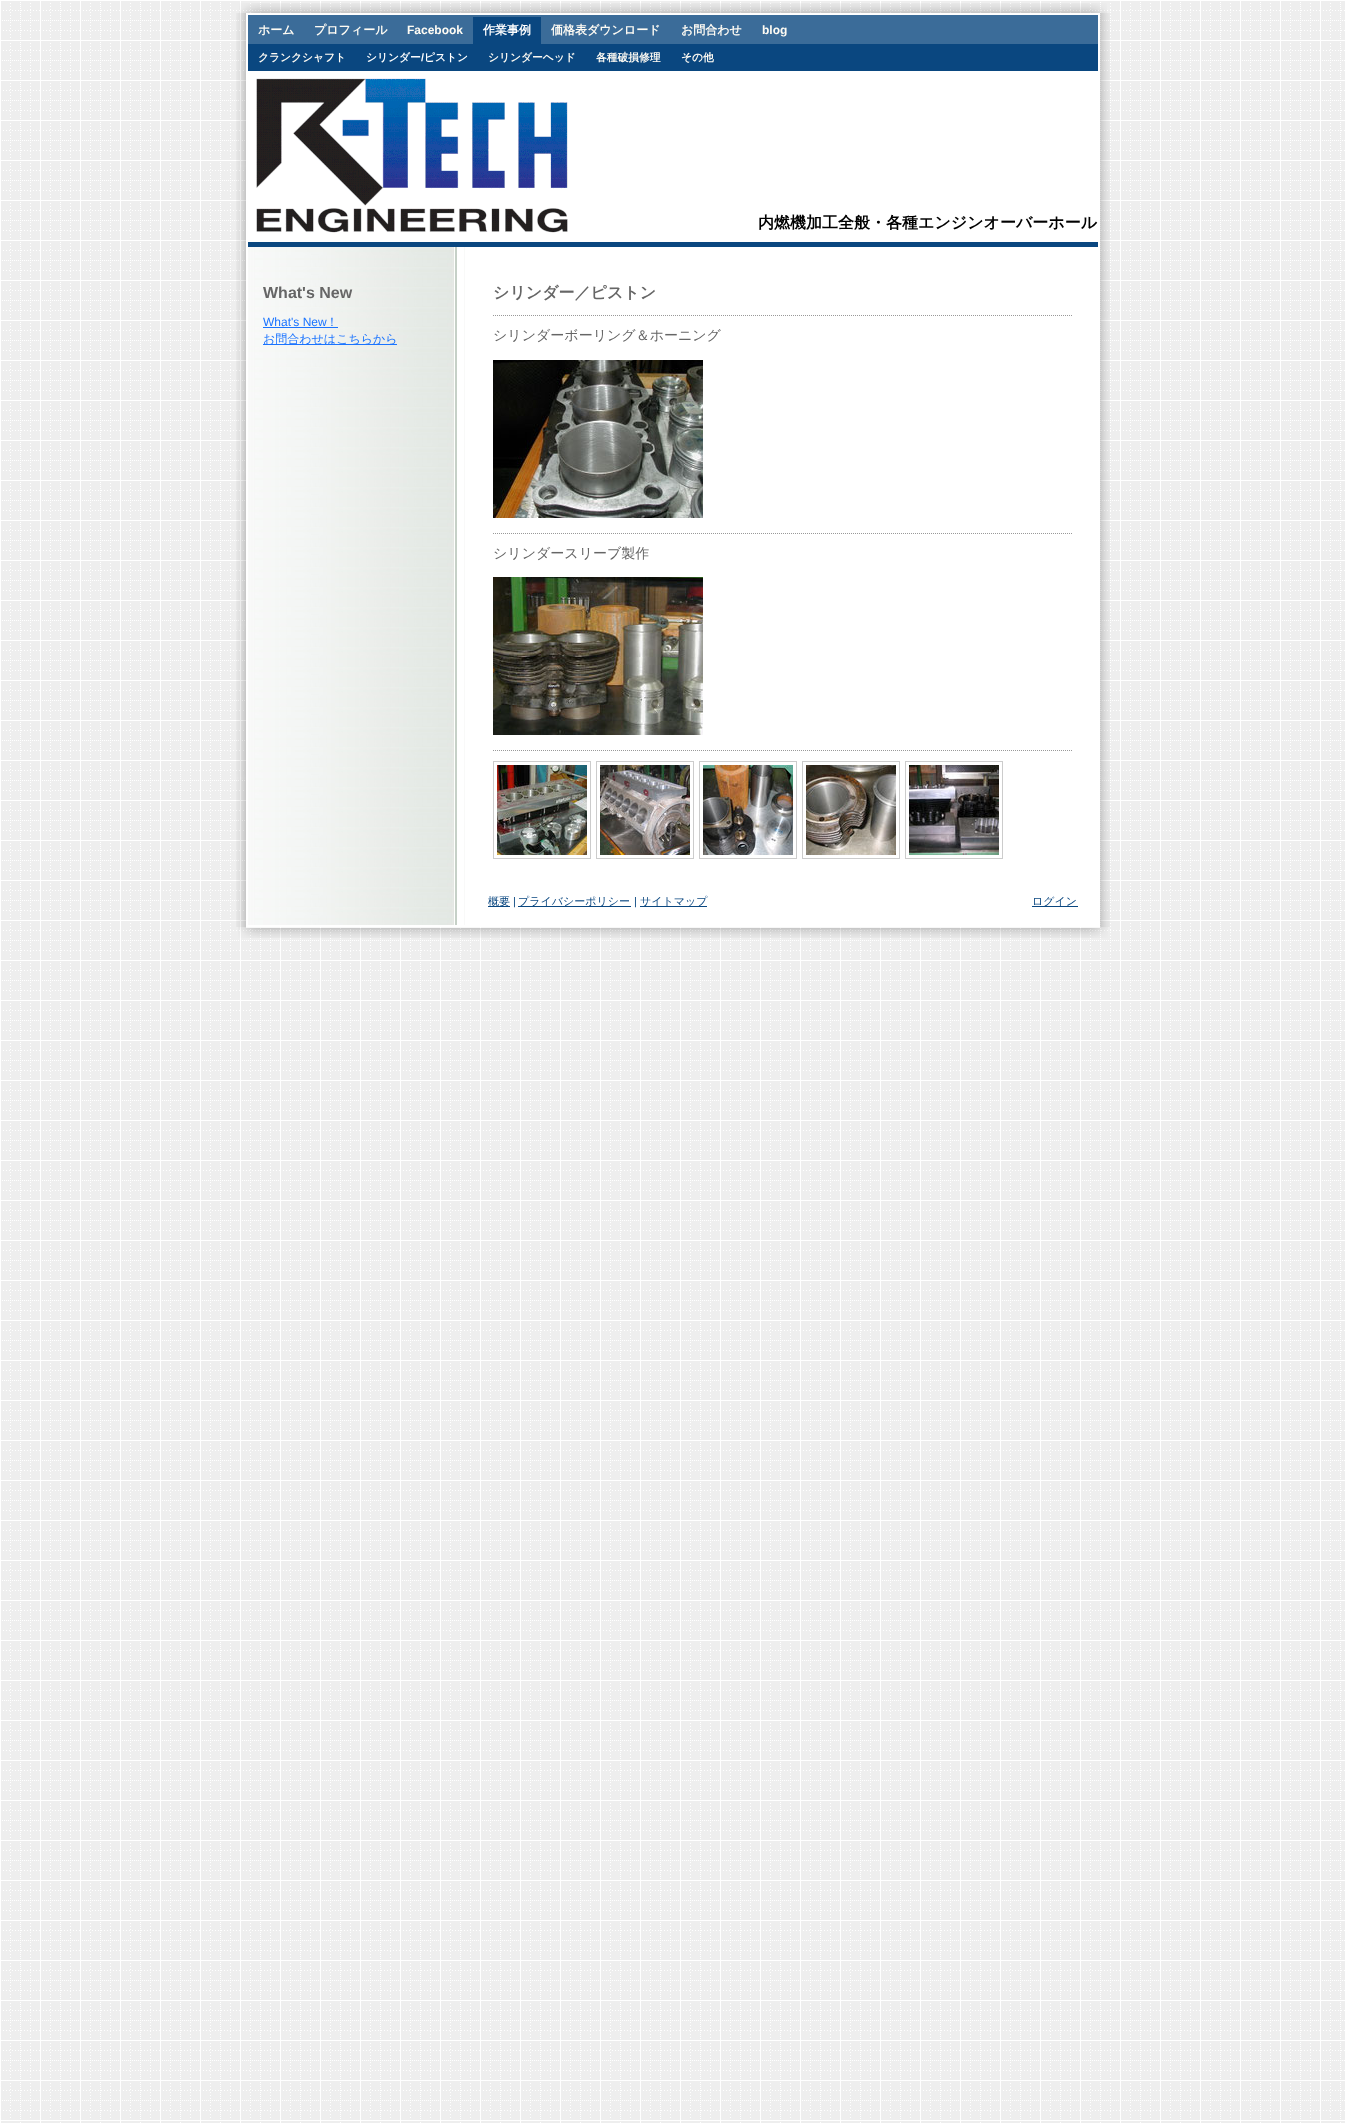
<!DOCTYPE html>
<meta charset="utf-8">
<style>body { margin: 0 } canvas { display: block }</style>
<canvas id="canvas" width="1345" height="2123"></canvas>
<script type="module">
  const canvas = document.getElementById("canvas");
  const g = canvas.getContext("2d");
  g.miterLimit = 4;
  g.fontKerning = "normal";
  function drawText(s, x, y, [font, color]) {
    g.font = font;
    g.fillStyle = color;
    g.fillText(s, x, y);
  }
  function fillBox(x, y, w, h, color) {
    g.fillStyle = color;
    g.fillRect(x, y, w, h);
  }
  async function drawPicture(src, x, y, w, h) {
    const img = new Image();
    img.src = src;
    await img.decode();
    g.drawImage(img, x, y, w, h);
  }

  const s1 = ["bold 12px WenQuanYi Zen Hei", "#FFFCF4"];
  const s2 = ["bold 12px Liberation Sans", "#FFFCF4"];
  const s3 = ["bold 12px WenQuanYi Zen Hei", "#FFFFFF"];
  const s4 = ["bold 10.75px WenQuanYi Zen Hei", "#FFFCF4"];
  const s5 = ["bold 10.75px WenQuanYi Zen Hei", "#FFFFFF"];
  const s6 = ["bold 10.75px Liberation Sans", "#FFFFFF"];
  const s7 = ["bold 16px WenQuanYi Zen Hei", "#000000"];
  const s8 = ["bold 16px Liberation Sans", "#666666"];
  const s9 = ["12px Liberation Sans", "#1B74FF"];
  const s10 = ["500 12px WenQuanYi Zen Hei", "#1B74FF"];
  const s11 = ["bold 16px WenQuanYi Zen Hei", "#666666"];
  const s12 = ["500 14px WenQuanYi Zen Hei", "#666666"];
  const s13 = ["500 11px WenQuanYi Zen Hei", "#0A4780"];
  const s14 = ["11px Liberation Sans", "#0A4780"];

  fillBox(0, 0, 1345, 2123, "#EEEEEE");
  await drawPicture("pic1.png", 0, 0, 1345, 2123);
  await drawPicture("pic2.png", 239, 3, 868, 10);
  await drawPicture("pic3.png", 236, 13, 874, 914);
  g.strokeStyle = "#FFFFFF";
  g.lineWidth = 2;
  g.strokeRect(247, 14, 852, 912);
  fillBox(248, 15, 850, 29, "#3B6C99");
  drawText("ホーム", 258, 34, s1);
  drawText("プロフィール", 314, 34, s1);
  drawText("Facebook", 407, 34, s2);
  fillBox(473, 17, 68, 27, "#0A4780");
  drawText("作業事例", 483, 34, s3);
  drawText("価格表ダウンロード", 551, 34, s1);
  drawText("お問合わせ", 681, 34, s1);
  drawText("blog", 762, 34, s2);
  fillBox(248, 44, 850, 27, "#0A4780");
  drawText("クランクシャフト", 258, 61, s4);
  drawText("シリンダー ピストン", 366, 61, s5);
  drawText("/", 421, 61, s6);
  drawText("シリンダーヘッド", 488, 61, s4);
  drawText("各種破損修理", 596, 61, s4);
  drawText("その他", 681, 61, s4);
  fillBox(248, 241, 850, 1, "#FFFFFF");
  fillBox(248, 71, 850, 169, "#FFFFFF");
  await drawPicture("pic4.png", 256, 78, 312, 155);
  drawText("内燃機加工全般・各種エンジンオーバーホール", 758, 228, s7);
  fillBox(465, 247, 633, 678, "#FFFFFF");
  await drawPicture("pic5.png", 248, 247, 217, 678);
  fillBox(248, 242, 850, 5, "#0A4780");
  drawText("What's New", 263, 298, s8);
  drawText("What's New", 263, 326, s9);
  fillBox(263, 327, 75, 1, "#1B74FF");
  drawText("！", 326, 326, s10);
  fillBox(263, 344, 134, 1, "#1B74FF");
  drawText("お問合わせはこちらから", 263, 343, s10);
  drawText("シリンダー／ピストン", 493, 298, s11);
  g.beginPath();
  g.moveTo(493, 315.5);
  g.lineTo(1073, 315.5);
  g.strokeStyle = "#999999";
  g.lineWidth = 1;
  g.setLineDash([1, 1]);
  g.stroke();
  drawText("シリンダーボーリング＆ホーニング", 493, 340, s12);
  await drawPicture("pic6.png", 493, 360, 210, 158);
  g.beginPath();
  g.moveTo(493, 533.5);
  g.lineTo(1073, 533.5);
  g.stroke();
  drawText("シリンダースリーブ製作", 493, 558, s12);
  await drawPicture("pic7.png", 493, 577, 210, 158);
  g.beginPath();
  g.moveTo(493, 750.5);
  g.lineTo(1073, 750.5);
  g.stroke();
  g.strokeStyle = "#CCCCCC";
  g.setLineDash([]);
  g.strokeRect(493.5, 761.5, 97, 97);
  await drawPicture("pic8.png", 497, 765, 90, 90);
  g.strokeRect(596.5, 761.5, 97, 97);
  await drawPicture("pic9.png", 600, 765, 90, 90);
  g.strokeRect(699.5, 761.5, 97, 97);
  await drawPicture("pic10.png", 703, 765, 90, 90);
  g.strokeRect(802.5, 761.5, 97, 97);
  await drawPicture("pic11.png", 806, 765, 90, 90);
  g.strokeRect(905.5, 761.5, 97, 97);
  await drawPicture("pic12.png", 909, 765, 90, 90);
  fillBox(488, 906, 22, 1, "#0A4780");
  drawText("概要", 488, 905, s13);
  drawText("|", 513, 905, s14);
  fillBox(518, 906, 113, 1, "#0A4780");
  drawText("プライバシーポリシー", 518, 905, s13);
  drawText("|", 634, 905, s14);
  fillBox(640, 906, 67, 1, "#0A4780");
  drawText("サイトマップ", 640, 905, s13);
  fillBox(1032, 906, 46, 1, "#0A4780");
  drawText("ログイン", 1032, 905, s13);
  await drawPicture("pic13.png", 238, 927, 870, 11);
</script>
